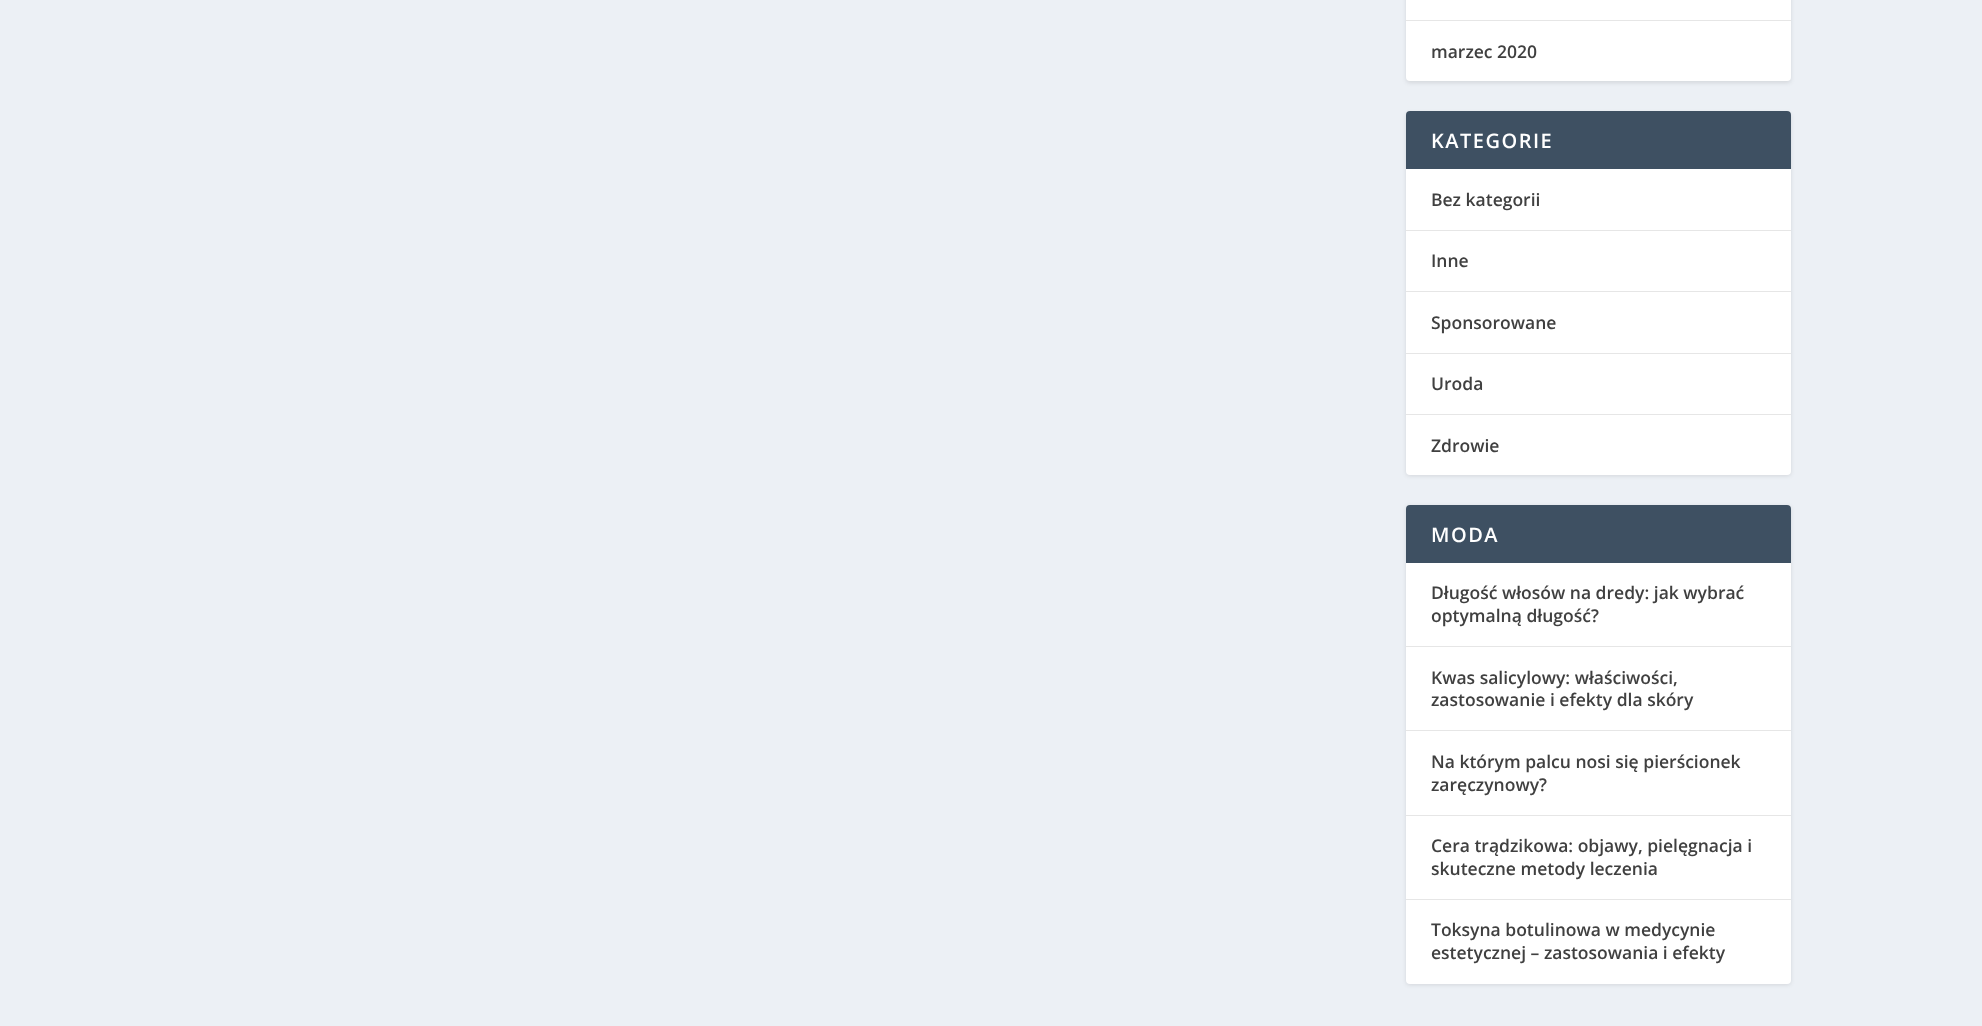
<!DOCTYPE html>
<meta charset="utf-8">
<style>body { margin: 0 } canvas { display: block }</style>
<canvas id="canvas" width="1982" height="1026"></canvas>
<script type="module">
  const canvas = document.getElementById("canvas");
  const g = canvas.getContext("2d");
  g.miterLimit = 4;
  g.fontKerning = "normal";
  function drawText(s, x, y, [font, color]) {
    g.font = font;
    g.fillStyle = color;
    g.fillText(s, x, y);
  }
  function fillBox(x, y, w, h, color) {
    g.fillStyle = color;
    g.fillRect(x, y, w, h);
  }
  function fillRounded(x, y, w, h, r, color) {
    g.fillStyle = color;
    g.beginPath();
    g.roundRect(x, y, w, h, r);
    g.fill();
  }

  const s1 = ["600 17.5px Open Sans", "#404040"];
  const s2 = ["600 20px Open Sans", "#FFFFFF"];

  fillBox(0, 0, 1982, 1026, "#ECF0F5");
  g.fillStyle = "rgba(0, 0, 0, 0.1)";
  g.filter = "blur(2px)";
  g.beginPath();
  g.roundRect(1406, -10, 385, 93, 4);
  g.fill();
  g.filter = "none";
  fillRounded(1406, -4, 385, 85, 4, "#FFFFFF");
  fillBox(1406, 20, 385, 1, "#E6E6E6");
  drawText("marzec 2020", 1431, 58, s1);
  g.fillStyle = "rgba(0, 0, 0, 0.1)";
  g.filter = "blur(2px)";
  g.beginPath();
  g.roundRect(1406, 113, 385, 363, 4);
  g.fill();
  g.filter = "none";
  fillRounded(1406, 111, 385, 364, 4, "#FFFFFF");
  g.fillStyle = "#3E5062";
  g.beginPath();
  g.roundRect(1406, 111, 385, 58, [4, 4, 0, 0]);
  g.fill();
  g.letterSpacing = "1.5px";
  drawText("KATEGORIE", 1431, 148, s2);
  fillBox(1406, 230, 385, 1, "#E6E6E6");
  g.letterSpacing = "0px";
  drawText("Bez kategorii", 1431, 206, s1);
  fillBox(1406, 291, 385, 1, "#E6E6E6");
  drawText("Inne", 1431, 267, s1);
  fillBox(1406, 353, 385, 1, "#E6E6E6");
  drawText("Sponsorowane", 1431, 329, s1);
  fillBox(1406, 414, 385, 1, "#E6E6E6");
  drawText("Uroda", 1431, 390, s1);
  drawText("Zdrowie", 1431, 452, s1);
  g.fillStyle = "rgba(0, 0, 0, 0.1)";
  g.filter = "blur(2px)";
  g.beginPath();
  g.roundRect(1406, 506, 385, 479, 4);
  g.fill();
  g.filter = "none";
  fillRounded(1406, 505, 385, 479, 4, "#FFFFFF");
  g.fillStyle = "#3E5062";
  g.beginPath();
  g.roundRect(1406, 505, 385, 58, [4, 4, 0, 0]);
  g.fill();
  g.letterSpacing = "1.5px";
  drawText("MODA", 1431, 542, s2);
  fillBox(1406, 646, 385, 1, "#E6E6E6");
  g.letterSpacing = "0px";
  drawText("Długość włosów na dredy: jak wybrać", 1431, 599, s1);
  drawText("optymalną długość?", 1431, 622, s1);
  fillBox(1406, 730, 385, 1, "#E6E6E6");
  drawText("Kwas salicylowy: właściwości,", 1431, 684, s1);
  drawText("zastosowanie i efekty dla skóry", 1431, 706, s1);
  fillBox(1406, 815, 385, 1, "#E6E6E6");
  drawText("Na którym palcu nosi się pierścionek", 1431, 768, s1);
  drawText("zaręczynowy?", 1431, 791, s1);
  fillBox(1406, 899, 385, 1, "#E6E6E6");
  drawText("Cera trądzikowa: objawy, pielęgnacja i", 1431, 852, s1);
  drawText("skuteczne metody leczenia", 1431, 875, s1);
  drawText("Toksyna botulinowa w medycynie", 1431, 936, s1);
  drawText("estetycznej – zastosowania i efekty", 1431, 959, s1);
</script>
